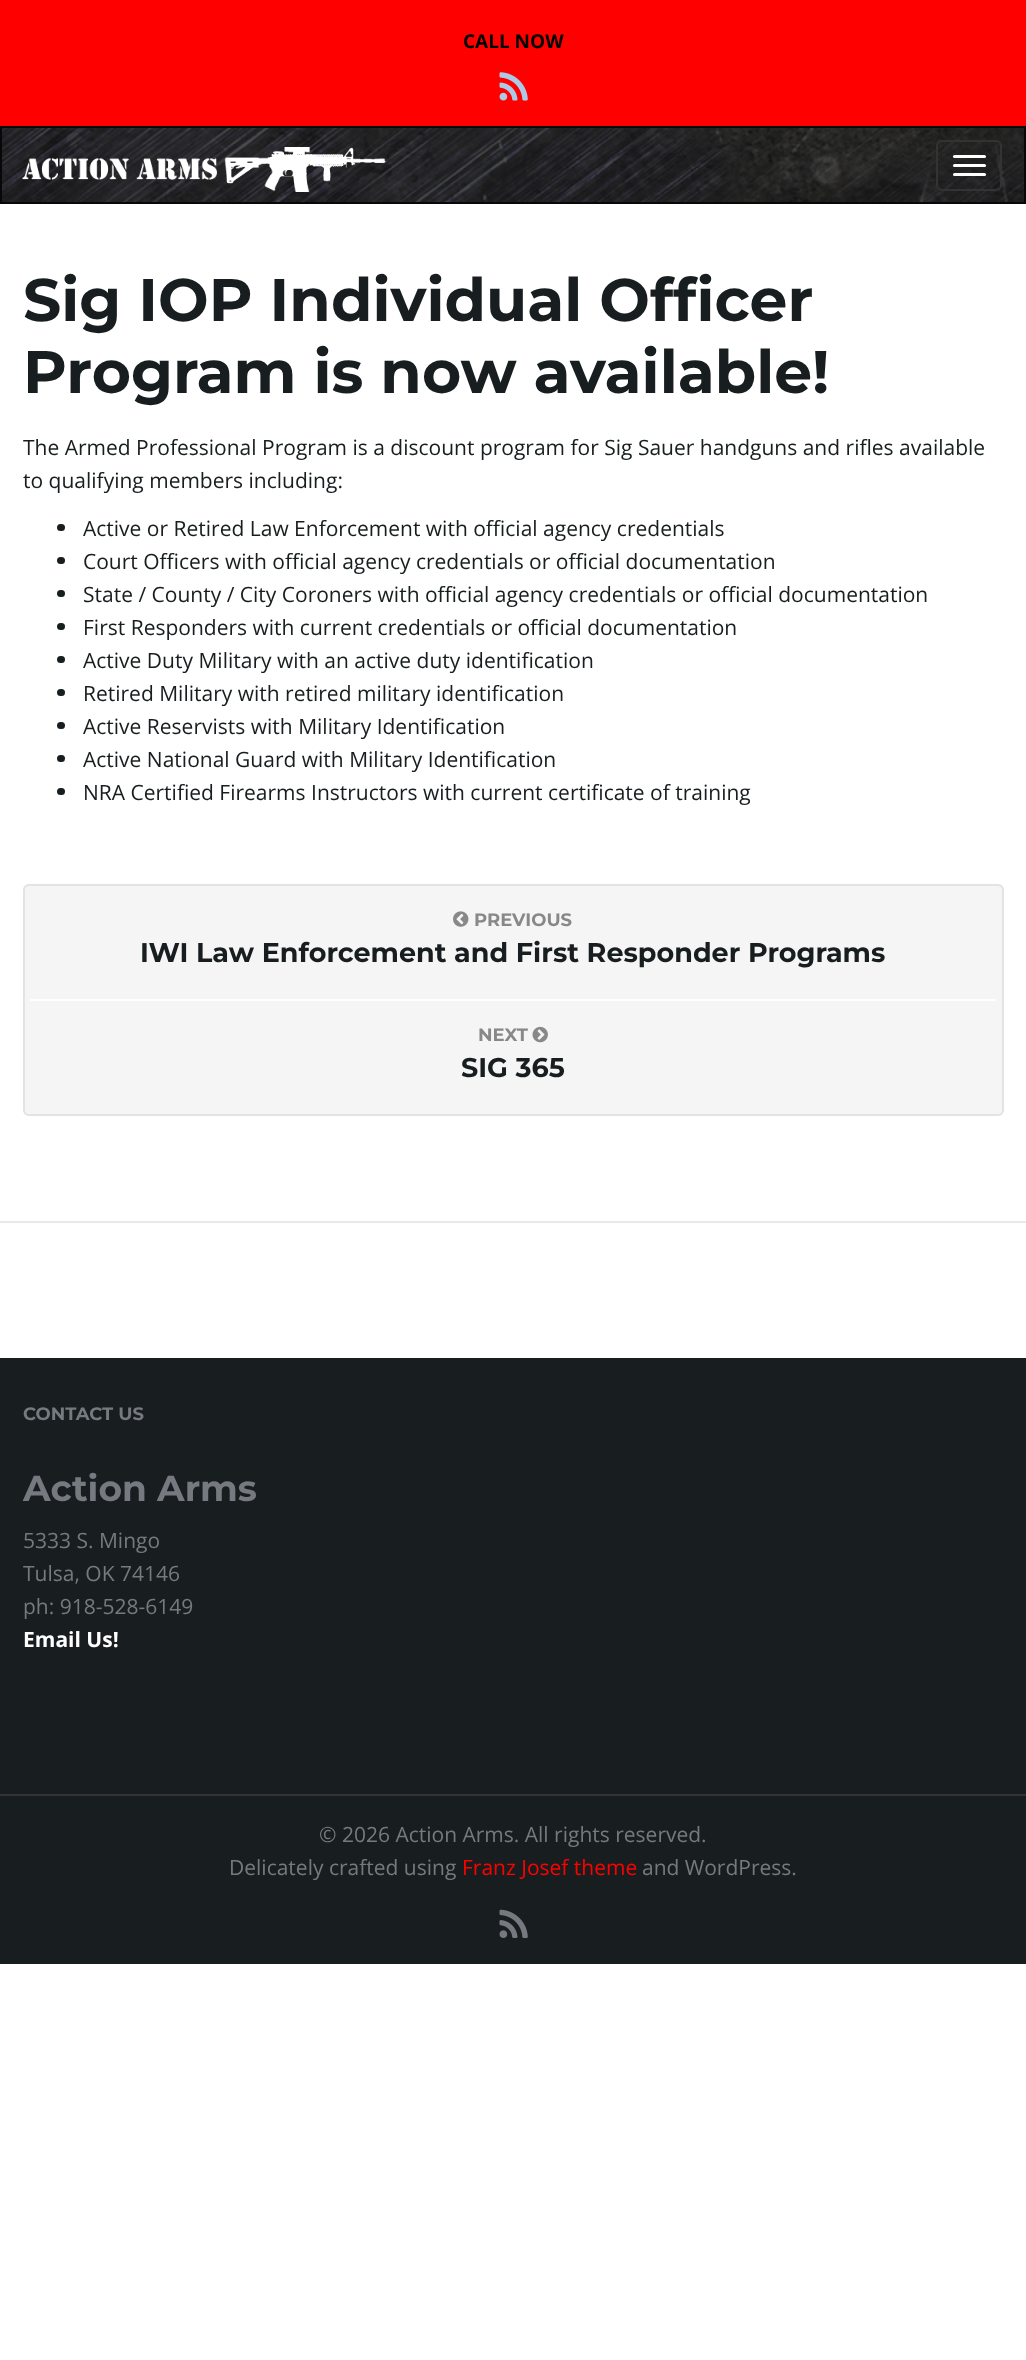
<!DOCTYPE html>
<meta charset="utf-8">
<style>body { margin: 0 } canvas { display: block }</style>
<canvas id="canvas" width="1026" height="2360"></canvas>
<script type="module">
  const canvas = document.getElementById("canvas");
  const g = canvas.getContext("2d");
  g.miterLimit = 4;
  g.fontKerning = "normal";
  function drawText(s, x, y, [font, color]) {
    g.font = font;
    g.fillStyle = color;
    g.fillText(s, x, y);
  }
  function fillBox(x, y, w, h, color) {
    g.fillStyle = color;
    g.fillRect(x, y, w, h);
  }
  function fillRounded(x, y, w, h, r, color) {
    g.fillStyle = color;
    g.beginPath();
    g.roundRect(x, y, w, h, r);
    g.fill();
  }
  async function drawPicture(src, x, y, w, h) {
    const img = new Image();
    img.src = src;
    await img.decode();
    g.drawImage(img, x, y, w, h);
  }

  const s1 = ["bold 19px Open Sans", "#000000"];
  const s2 = ["100 60px Montserrat", "#181E1F"];
  const s3 = ["21px Open Sans", "#181E1F"];
  const s4 = ["100 18px Montserrat", "#888888"];
  const s5 = ["100 27px Montserrat", "#181E1F"];
  const s6 = ["100 18px Montserrat", "#76797F"];
  const s7 = ["100 36px Montserrat", "#76797F"];
  const s8 = ["21px Open Sans", "#76797F"];
  const s9 = ["bold 21px Open Sans", "#FFFFFF"];
  const s10 = ["21px Open Sans", "#FF0000"];

  fillBox(0, 0, 1026, 2360, "#FFFFFF");
  fillBox(0, 0, 1026, 126, "#FF0000");
  drawText("CALL NOW", 463, 48, s1);
  await drawPicture("pic1.png", 499, 72, 29, 29);
  await drawPicture("pic2.png", 2, 128, 1022, 74);
  g.strokeStyle = "#080808";
  g.lineWidth = 2;
  g.strokeRect(1, 127, 1024, 76);
  await drawPicture("pic3.png", 22, 147, 364, 45);
  g.beginPath();
  g.roundRect(937, 141, 64, 49, 5);
  g.strokeStyle = "#333333";
  g.stroke();
  fillRounded(953, 155, 33, 3, 1.5, "#FFFFFF");
  fillRounded(953, 164, 33, 3, 1.5, "#FFFFFF");
  fillRounded(953, 173, 33, 3, 1.5, "#FFFFFF");
  drawText("Sig IOP Individual Officer", 23, 321, s2);
  drawText("Program is now available!", 23, 393, s2);
  drawText("The Armed Professional Program is a discount program for Sig Sauer handguns and rifles available", 23, 455, s3);
  drawText("to qualifying members including:", 23, 488, s3);
  fillRounded(57, 524, 8, 7, 3.5, "#181E1F");
  drawText("Active or Retired Law Enforcement with official agency credentials", 83, 536, s3);
  fillRounded(57, 557, 8, 7, 3.5, "#181E1F");
  drawText("Court Officers with official agency credentials or official documentation", 83, 569, s3);
  fillRounded(57, 590, 8, 7, 3.5, "#181E1F");
  drawText("State / County / City Coroners with official agency credentials or official documentation", 83, 602, s3);
  fillRounded(57, 623, 8, 7, 3.5, "#181E1F");
  drawText("First Responders with current credentials or official documentation", 83, 635, s3);
  fillRounded(57, 656, 8, 7, 3.5, "#181E1F");
  drawText("Active Duty Military with an active duty identification", 83, 668, s3);
  fillRounded(57, 689, 8, 7, 3.5, "#181E1F");
  drawText("Retired Military with retired military identification", 83, 701, s3);
  fillRounded(57, 722, 8, 7, 3.5, "#181E1F");
  drawText("Active Reservists with Military Identification", 83, 734, s3);
  fillRounded(57, 755, 8, 7, 3.5, "#181E1F");
  drawText("Active National Guard with Military Identification", 83, 767, s3);
  fillRounded(57, 788, 8, 7, 3.5, "#181E1F");
  drawText("NRA Certified Firearms Instructors with current certificate of training", 83, 800, s3);
  fillRounded(23, 884, 981, 232, 6, "#F5F5F5");
  g.fillStyle = "#E9E9E9";
  g.beginPath();
  g.moveTo(28, 886);
  g.lineTo(998, 886);
  g.bezierCurveTo(1000, 886, 1002, 889, 1002, 891);
  g.bezierCurveTo(1002, 888, 1000, 885, 997, 885);
  g.lineTo(29, 885);
  g.bezierCurveTo(26, 885, 24, 888, 24, 891);
  g.bezierCurveTo(24, 889, 26, 886, 28, 886);
  g.closePath();
  g.fill();
  g.beginPath();
  g.roundRect(24, 885, 979, 230, 5);
  g.strokeStyle = "#E3E3E3";
  g.stroke();
  fillBox(30, 999, 966, 2, "#FFFFFF");
  await drawPicture("pic4.png", 453, 911, 16, 16);
  drawText("PREVIOUS", 474, 926, s4);
  drawText("IWI Law Enforcement and First Responder Programs", 140, 962, s5);
  drawText("NEXT", 478, 1041, s4);
  await drawPicture("pic5.png", 532, 1026, 16, 17);
  drawText("SIG 365", 461, 1077, s5);
  fillBox(0, 1221, 1026, 2, "#E7EAEC");
  fillBox(0, 1358, 1026, 606, "#181E1F");
  fillBox(0, 1794, 1026, 2, "#333333");
  drawText("CONTACT US", 23, 1420, s6);
  drawText("Action Arms", 23, 1501, s7);
  drawText("5333 S. Mingo", 23, 1548, s8);
  drawText("Tulsa, OK 74146", 23, 1581, s8);
  drawText("ph: 918-528-6149", 23, 1614, s8);
  drawText("Email Us!", 23, 1647, s9);
  drawText("© 2026 Action Arms. All rights reserved.", 319, 1842, s8);
  drawText("Delicately crafted using", 229, 1875, s8);
  drawText("Franz Josef theme", 462, 1875, s10);
  drawText("and WordPress.", 642, 1875, s8);
  await drawPicture("pic6.png", 499, 1909, 29, 29);
</script>
